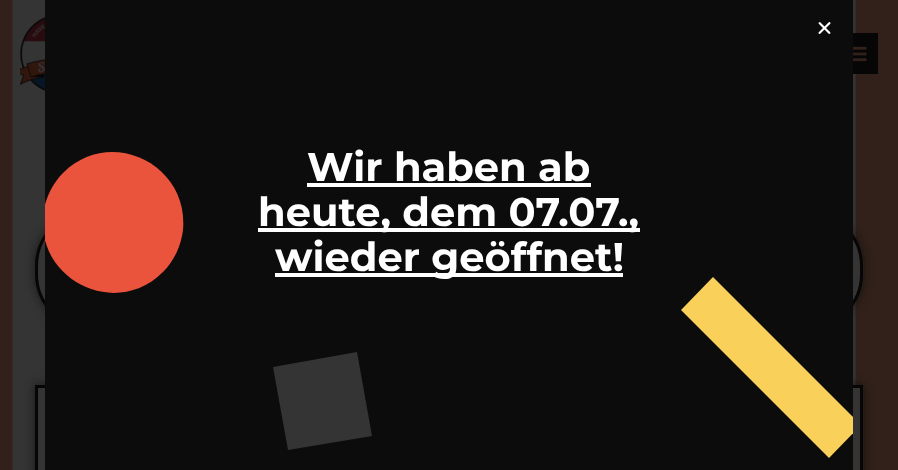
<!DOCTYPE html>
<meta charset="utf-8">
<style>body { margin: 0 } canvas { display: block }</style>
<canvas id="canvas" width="898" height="470"></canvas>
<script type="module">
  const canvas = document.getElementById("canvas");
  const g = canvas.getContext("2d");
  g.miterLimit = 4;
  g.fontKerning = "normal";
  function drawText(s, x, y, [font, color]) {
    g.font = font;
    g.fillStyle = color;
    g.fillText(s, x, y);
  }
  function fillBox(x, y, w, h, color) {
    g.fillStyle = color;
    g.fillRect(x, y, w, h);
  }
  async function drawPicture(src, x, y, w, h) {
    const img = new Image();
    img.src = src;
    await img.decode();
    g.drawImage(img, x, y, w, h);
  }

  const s1 = ["bold 40px Montserrat", "#FFFFFF"];

  fillBox(0, 0, 898, 470, "#FFFFFF");
  await drawPicture("pic1.png", 0, 0, 898, 470);
  g.fillStyle = "rgba(6, 6, 6, 0.5)";
  g.filter = "blur(5px)";
  g.beginPath();
  g.roundRect(34, 209, 830, 122, 57);
  g.fill();
  g.filter = "none";
  g.fillStyle = "#343434";
  g.beginPath();
  g.roundRect(36.5, 211.5, 825, 117, 54.5);
  g.fill();
  g.strokeStyle = "#060606";
  g.lineWidth = 3;
  g.stroke();
  g.fillStyle = "rgba(6, 6, 6, 0.5)";
  g.filter = "blur(5px)";
  g.beginPath();
  g.rect(34, 384, 830, 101);
  g.fill();
  g.filter = "none";
  g.fillStyle = "#343434";
  g.beginPath();
  g.rect(36.5, 386.5, 825, 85);
  g.fill();
  g.stroke();
  await drawPicture("pic2.png", 20, 17, 25, 74);
  fillBox(853, 33, 25, 41, "rgba(6, 6, 6, 0.99)");
  await drawPicture("pic3.png", 853, 46, 14, 16);
  fillBox(45, 0, 808, 470, "#0C0C0C");
  await drawPicture("pic4.png", 818, 22, 13, 12);
  g.save();
  g.beginPath();
  g.rect(45, 0, 808, 470);
  g.clip();
  g.fillStyle = "#EA533C";
  g.beginPath();
  g.moveTo(63, 173);
  g.bezierCurveTo(110, 126, 189, 164, 183, 230);
  g.bezierCurveTo(181, 246, 174, 261, 163, 272);
  g.bezierCurveTo(116, 319, 37, 281, 43, 215);
  g.bezierCurveTo(45, 199, 52, 184, 63, 173);
  g.closePath();
  g.fill();
  g.restore();
  drawText("Wir haben ab", 307, 181, s1);
  fillBox(307, 183, 284, 4, "#FFFFFF");
  fillBox(258, 228, 382, 4, "#FFFFFF");
  drawText("heute, dem 07.07.,", 258, 226, s1);
  fillBox(275, 273, 348, 4, "#FFFFFF");
  drawText("wieder geöffnet!", 275, 271, s1);
  g.fillStyle = "#343434";
  g.beginPath();
  g.moveTo(288, 450);
  g.lineTo(273, 367);
  g.lineTo(357, 352);
  g.lineTo(372, 436);
  g.closePath();
  g.fill();
  g.save();
  g.beginPath();
  g.rect(45, 0, 808, 470);
  g.clip();
  g.fillStyle = "#F9D05A";
  g.beginPath();
  g.moveTo(829, 458);
  g.lineTo(681, 310);
  g.lineTo(713, 277);
  g.lineTo(861, 425);
  g.closePath();
  g.fill();
  g.restore();
</script>
